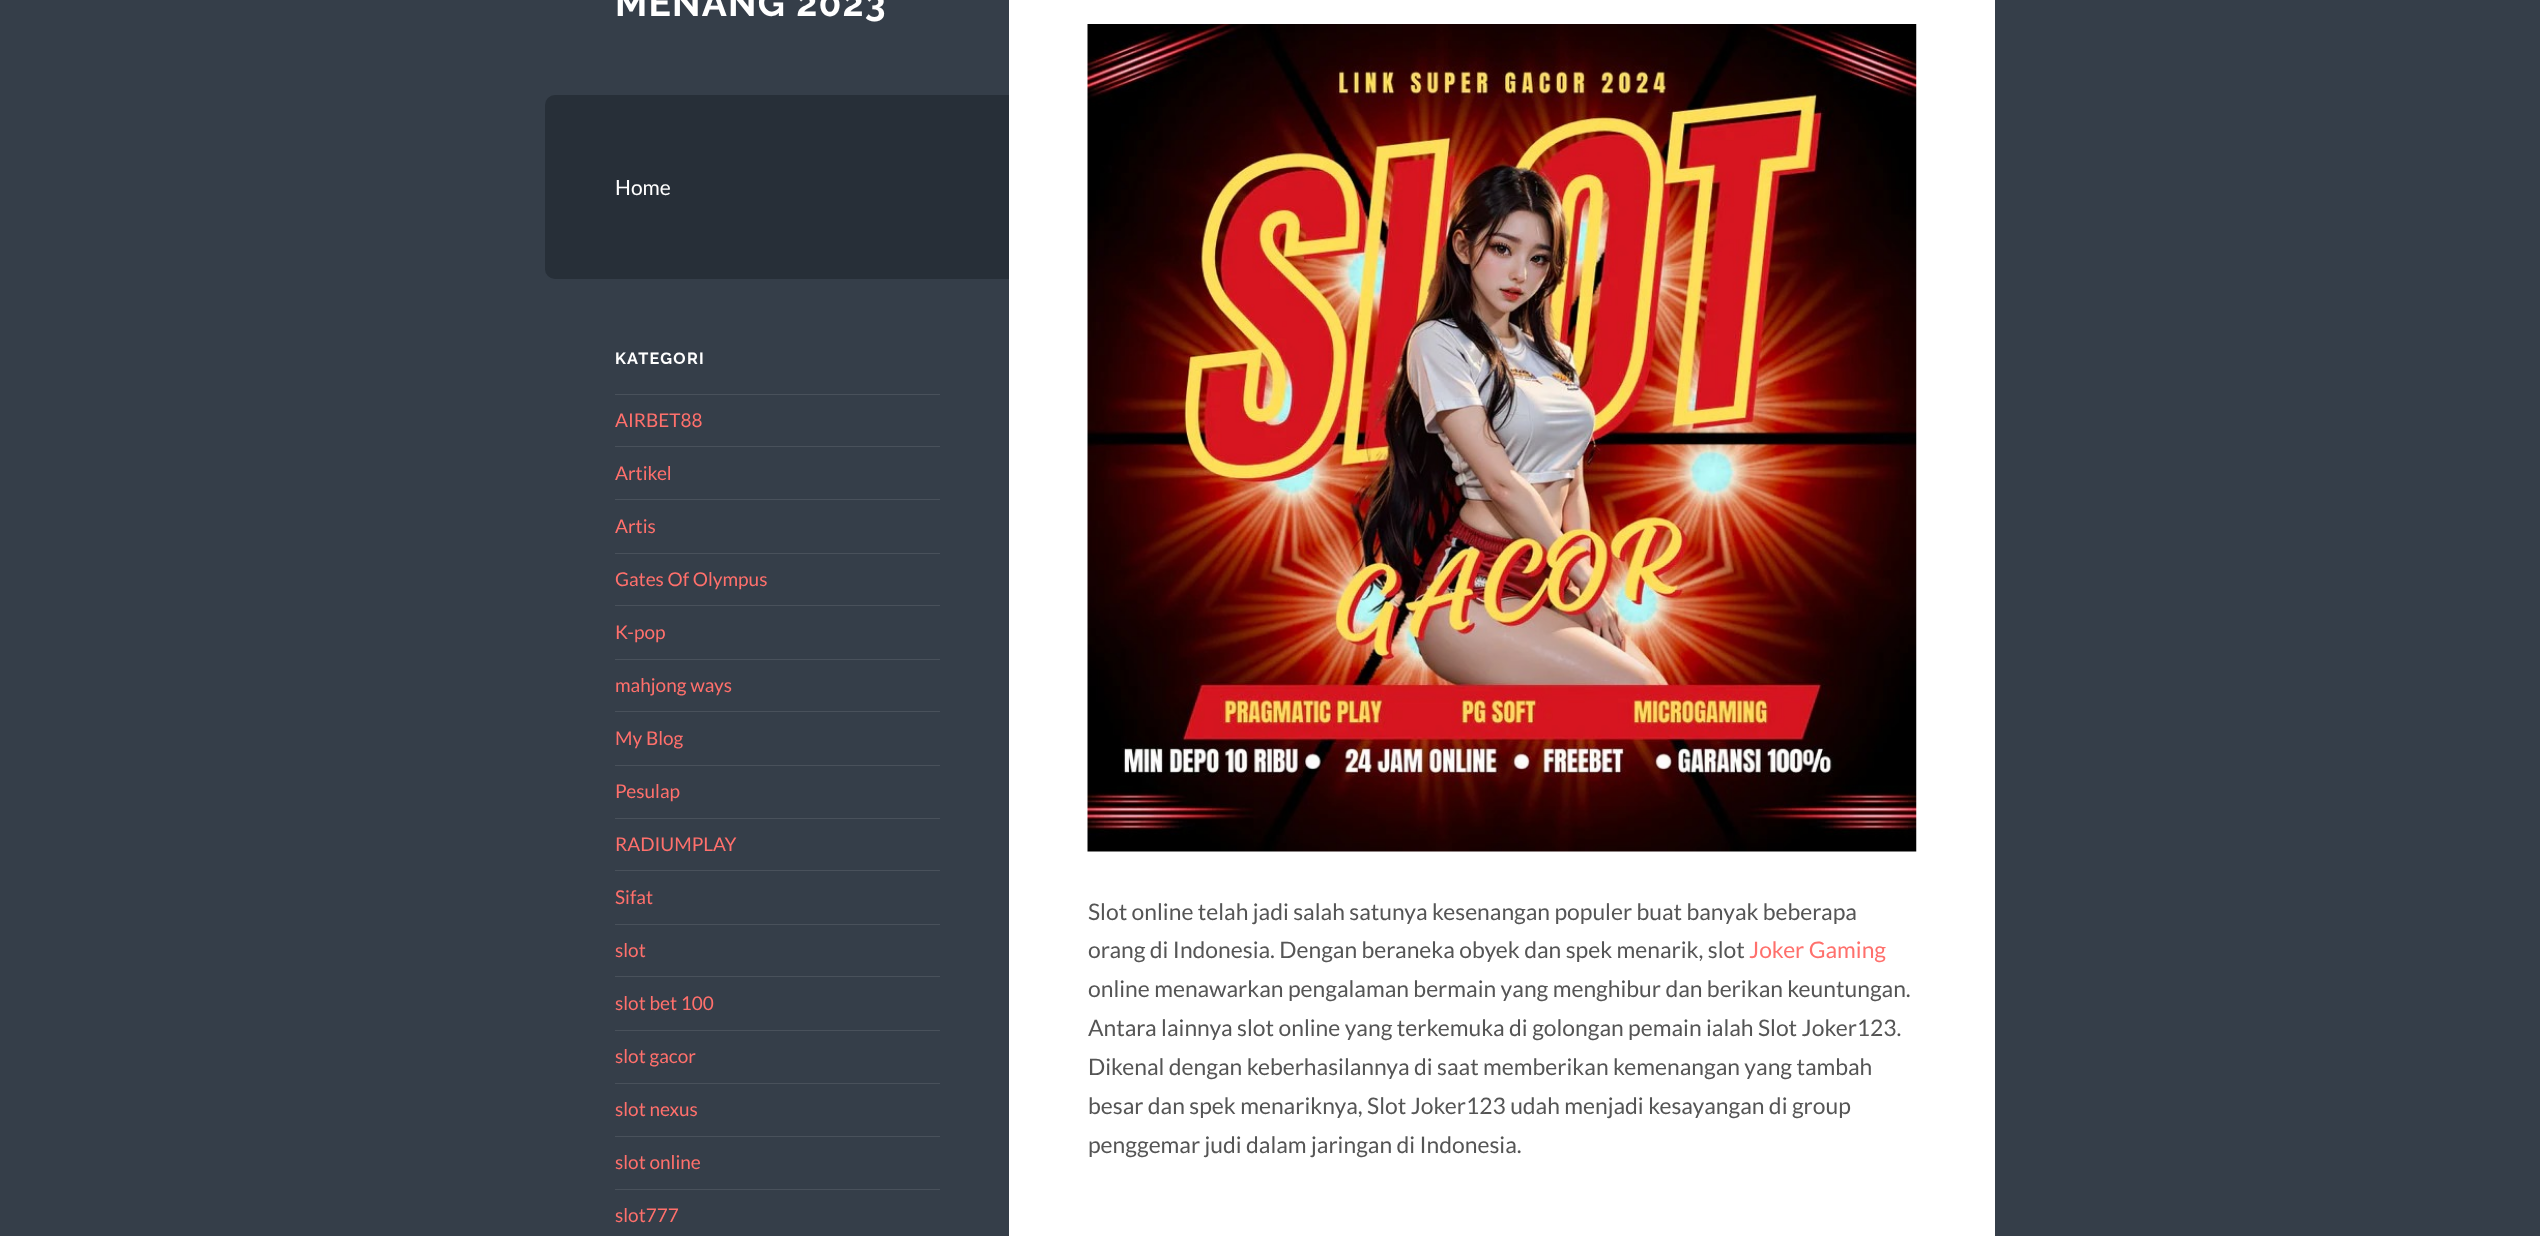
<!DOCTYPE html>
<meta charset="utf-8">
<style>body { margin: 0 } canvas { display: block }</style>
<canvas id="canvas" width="2540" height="1236"></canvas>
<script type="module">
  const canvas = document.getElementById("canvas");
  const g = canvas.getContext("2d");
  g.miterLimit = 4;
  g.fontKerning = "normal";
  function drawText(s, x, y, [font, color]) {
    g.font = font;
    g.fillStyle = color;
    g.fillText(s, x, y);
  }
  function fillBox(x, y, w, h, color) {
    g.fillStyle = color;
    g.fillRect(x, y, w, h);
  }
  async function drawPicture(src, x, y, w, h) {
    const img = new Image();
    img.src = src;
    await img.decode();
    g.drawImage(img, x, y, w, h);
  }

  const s1 = ["100 37.25px Raleway", "#FFFFFF"];
  const s2 = ["21px Lato", "#FFFFFF"];
  const s3 = ["100 16.25px Raleway", "#FFFFFF"];
  const s4 = ["19px Lato", "#FF706C"];
  const s5 = ["22.85px Lato", "#555555"];
  const s6 = ["22.85px Lato", "#FF706C"];

  fillBox(0, 0, 2540, 1236, "#353E49");
  g.letterSpacing = "1.25px";
  drawText("MENANG 2023", 615, 16, s1);
  g.fillStyle = "#272F38";
  g.beginPath();
  g.roundRect(545, 95, 464, 184, [10, 0, 0, 10]);
  g.fill();
  g.letterSpacing = "0px";
  drawText("Home", 615, 195, s2);
  g.letterSpacing = "1.25px";
  drawText("KATEGORI", 615, 364, s3);
  fillBox(615, 394, 325, 1, "#49515B");
  g.letterSpacing = "0px";
  drawText("AIRBET88", 615, 427, s4);
  fillBox(615, 446, 325, 1, "#49515B");
  drawText("Artikel", 615, 480, s4);
  fillBox(615, 499, 325, 1, "#49515B");
  drawText("Artis", 615, 533, s4);
  fillBox(615, 553, 325, 1, "#49515B");
  drawText("Gates Of Olympus", 615, 586, s4);
  fillBox(615, 605, 325, 1, "#49515B");
  drawText("K-pop", 615, 639, s4);
  fillBox(615, 659, 325, 1, "#49515B");
  drawText("mahjong ways", 615, 692, s4);
  fillBox(615, 711, 325, 1, "#49515B");
  drawText("My Blog", 615, 745, s4);
  fillBox(615, 765, 325, 1, "#49515B");
  drawText("Pesulap", 615, 798, s4);
  fillBox(615, 818, 325, 1, "#49515B");
  drawText("RADIUMPLAY", 615, 851, s4);
  fillBox(615, 870, 325, 1, "#49515B");
  drawText("Sifat", 615, 904, s4);
  fillBox(615, 924, 325, 1, "#49515B");
  drawText("slot", 615, 957, s4);
  fillBox(615, 976, 325, 1, "#49515B");
  drawText("slot bet 100", 615, 1010, s4);
  fillBox(615, 1030, 325, 1, "#49515B");
  drawText("slot gacor", 615, 1063, s4);
  fillBox(615, 1083, 325, 1, "#49515B");
  drawText("slot nexus", 615, 1116, s4);
  fillBox(615, 1136, 325, 1, "#49515B");
  drawText("slot online", 615, 1169, s4);
  fillBox(615, 1189, 325, 1, "#49515B");
  drawText("slot777", 615, 1222, s4);
  fillBox(1009, 0, 986, 1236, "#FFFFFF");
  await drawPicture("pic1.png", 1087, 24, 830, 828);
  drawText("Slot online telah jadi salah satunya kesenangan populer buat banyak beberapa", 1088, 920, s5);
  drawText("orang di Indonesia. Dengan beraneka obyek dan spek menarik, slot", 1088, 958, s5);
  drawText("Joker Gaming", 1749, 958, s6);
  drawText("online menawarkan pengalaman bermain yang menghibur dan berikan keuntungan.", 1088, 997, s5);
  drawText("Antara lainnya slot online yang terkemuka di golongan pemain ialah Slot Joker123.", 1088, 1036, s5);
  drawText("Dikenal dengan keberhasilannya di saat memberikan kemenangan yang tambah", 1088, 1075, s5);
  drawText("besar dan spek menariknya, Slot Joker123 udah menjadi kesayangan di group", 1088, 1114, s5);
  drawText("penggemar judi dalam jaringan di Indonesia.", 1088, 1153, s5);
</script>
